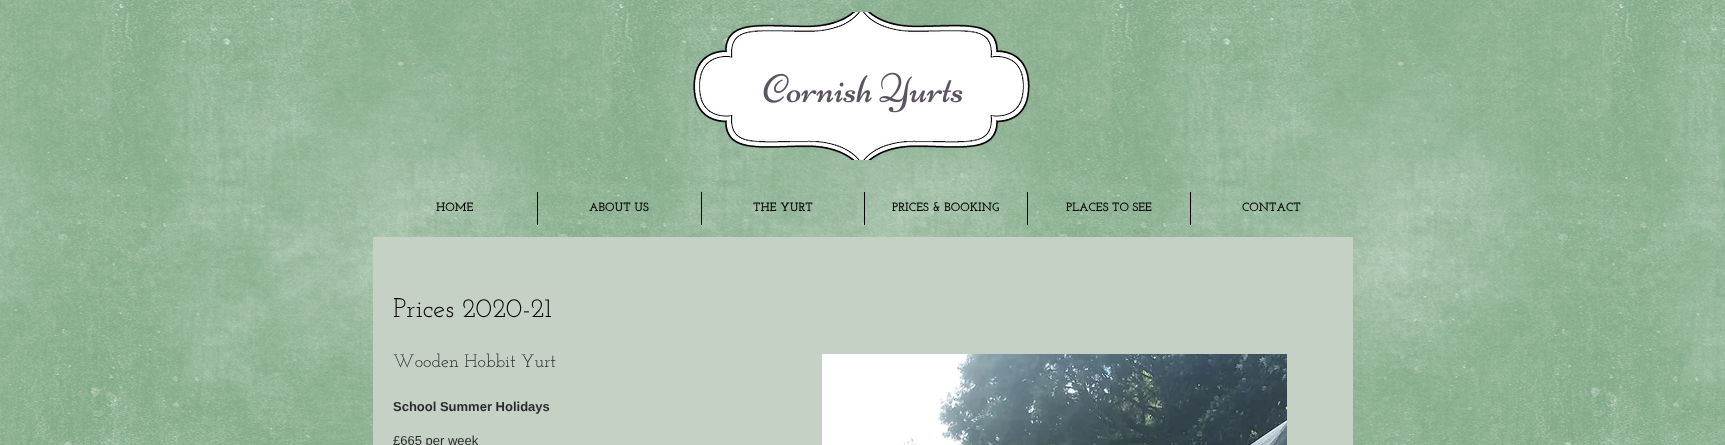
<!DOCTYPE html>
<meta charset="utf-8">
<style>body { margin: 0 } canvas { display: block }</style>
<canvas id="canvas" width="1725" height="445"></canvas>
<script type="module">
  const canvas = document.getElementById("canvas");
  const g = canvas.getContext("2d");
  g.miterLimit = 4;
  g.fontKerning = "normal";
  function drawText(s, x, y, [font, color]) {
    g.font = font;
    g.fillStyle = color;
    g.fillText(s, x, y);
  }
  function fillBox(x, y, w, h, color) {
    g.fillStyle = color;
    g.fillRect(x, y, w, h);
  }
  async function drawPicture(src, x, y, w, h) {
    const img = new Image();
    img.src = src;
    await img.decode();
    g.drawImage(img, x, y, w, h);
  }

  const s1 = ["bold 12px Josefin Slab", "#000000"];
  const s2 = ["27px Josefin Slab", "#000000"];
  const s3 = ["18px Josefin Slab", "#292C2D"];
  const s4 = ["bold 13px Liberation Sans", "#292C2D"];
  const s5 = ["13px Liberation Sans", "#292C2D"];

  fillBox(0, 0, 1725, 445, "#7FA886");
  await drawPicture("pic1.png", 0, 0, 1725, 445);
  await drawPicture("pic2.png", 693, 12, 337, 148);
  await drawPicture("pic3.png", 763, 72, 200, 41);
  drawText("HOME", 436, 211, s1);
  fillBox(537, 192, 1, 33, "#000000");
  drawText("ABOUT US", 589, 211, s1);
  fillBox(701, 192, 1, 33, "#000000");
  drawText("THE YURT", 753, 211, s1);
  fillBox(864, 192, 1, 33, "#000000");
  drawText("PRICES & BOOKING", 892, 211, s1);
  fillBox(1027, 192, 1, 33, "#000000");
  drawText("PLACES TO SEE", 1066, 211, s1);
  fillBox(1190, 192, 1, 33, "#000000");
  drawText("CONTACT", 1242, 211, s1);
  fillBox(373, 237, 980, 208, "#C5D1C4");
  drawText("Prices 2020-21", 393, 317, s2);
  drawText("Wooden Hobbit Yurt", 393, 367, s3);
  drawText("School Summer Holidays", 393, 411, s4);
  drawText("£665 per week", 393, 445, s5);
  await drawPicture("pic4.png", 822, 354, 465, 91);
</script>
